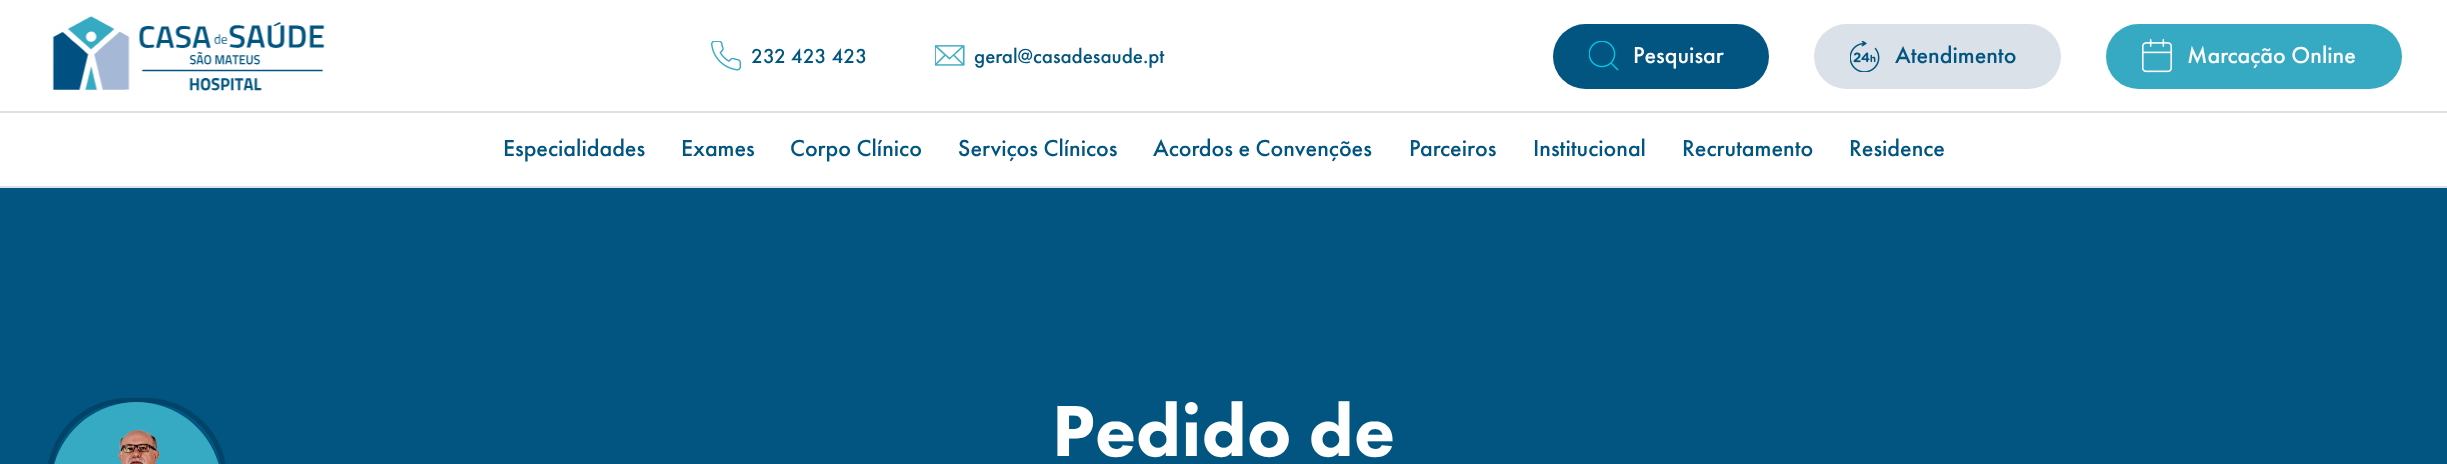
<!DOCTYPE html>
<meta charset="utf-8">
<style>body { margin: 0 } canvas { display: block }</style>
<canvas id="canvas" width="2447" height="464"></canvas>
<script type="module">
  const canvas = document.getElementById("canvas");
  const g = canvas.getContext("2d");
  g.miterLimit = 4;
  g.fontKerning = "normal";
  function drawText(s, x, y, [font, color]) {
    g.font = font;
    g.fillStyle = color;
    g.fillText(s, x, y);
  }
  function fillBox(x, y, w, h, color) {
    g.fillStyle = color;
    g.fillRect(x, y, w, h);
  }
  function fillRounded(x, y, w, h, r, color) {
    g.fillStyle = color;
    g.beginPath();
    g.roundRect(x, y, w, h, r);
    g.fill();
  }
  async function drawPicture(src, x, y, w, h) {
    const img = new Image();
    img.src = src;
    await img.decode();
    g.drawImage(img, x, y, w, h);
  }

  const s1 = ["500 21px Futura PT", "#015580"];
  const s2 = ["500 24px Futura PT", "#FFFFFF"];
  const s3 = ["500 24px Futura PT", "#015580"];
  const s4 = ["900 75px Futura PT", "#FFFFFF"];

  fillBox(0, 0, 2447, 464, "#015580");
  fillBox(0, 0, 2447, 111, "#FFFFFF");
  fillBox(0, 111, 2447, 2, "#DBE1E9");
  await drawPicture("pic1.png", 52, 16, 273, 75);
  await drawPicture("pic2.png", 711, 41, 30, 30);
  drawText("232 423 423", 751, 63, s1);
  await drawPicture("pic3.png", 935, 45, 30, 21);
  drawText("geral@casadesaude.pt", 974, 63, s1);
  fillRounded(1553, 24, 216, 65, 32.5, "#015580");
  await drawPicture("pic4.png", 1589, 41, 30, 30);
  drawText("Pesquisar", 1633, 63, s2);
  fillRounded(1814, 24, 247, 65, 32.5, "#DBE1E9");
  await drawPicture("pic5.png", 1850, 41, 30, 31);
  drawText("Atendimento", 1895, 63, s3);
  fillRounded(2106, 24, 296, 65, 32.5, "#36AAC3");
  await drawPicture("pic6.png", 2142, 39, 30, 34);
  drawText("Marcação Online", 2187, 63, s2);
  fillBox(0, 186, 2447, 2, "#DBE1E9");
  fillBox(0, 113, 2447, 73, "#FFFFFF");
  drawText("Especialidades", 503, 156, s3);
  drawText("Exames", 681, 156, s3);
  drawText("Corpo Clínico", 790, 156, s3);
  drawText("Serviços Clínicos", 958, 156, s3);
  drawText("Acordos e Convenções", 1153, 156, s3);
  drawText("Parceiros", 1409, 156, s3);
  drawText("Institucional", 1533, 156, s3);
  drawText("Recrutamento", 1682, 156, s3);
  drawText("Residence", 1849, 156, s3);
  g.beginPath();
  g.roundRect(49.5, 400.5, 175, 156, 87.5);
  g.strokeStyle = "#014467";
  g.lineWidth = 5;
  g.stroke();
  g.fillStyle = "#36AAC3";
  g.beginPath();
  g.moveTo(136.5, 402);
  g.bezierCurveTo(183.5, 402, 222, 440.5, 222, 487.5);
  g.lineTo(222, 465);
  g.lineTo(51, 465);
  g.lineTo(51, 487.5);
  g.bezierCurveTo(51, 440.5, 89.5, 402, 136.5, 402);
  g.closePath();
  g.fill();
  await drawPicture("pic7.png", 118, 430, 42, 34);
  drawText("Pedido de", 1052, 456, s4);
</script>
